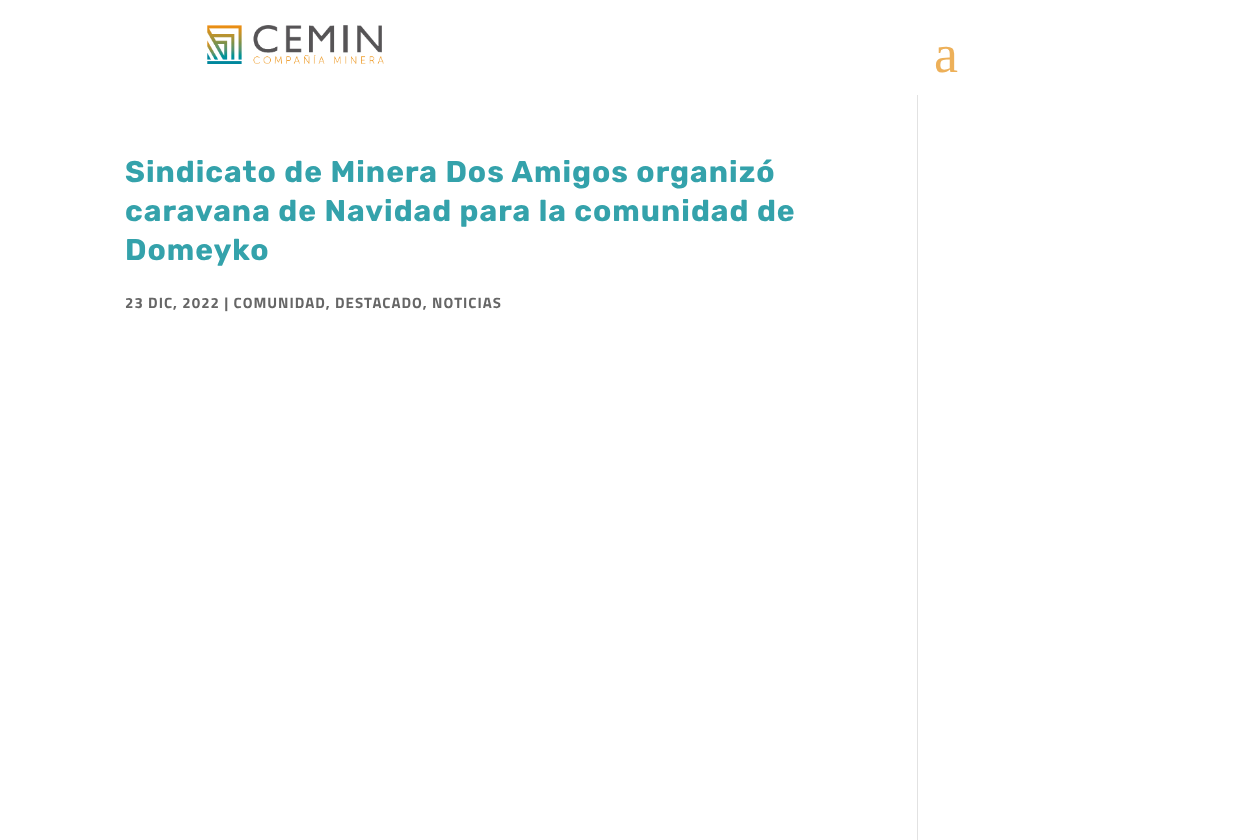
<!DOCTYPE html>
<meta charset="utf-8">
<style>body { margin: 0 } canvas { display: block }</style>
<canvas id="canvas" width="1252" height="840"></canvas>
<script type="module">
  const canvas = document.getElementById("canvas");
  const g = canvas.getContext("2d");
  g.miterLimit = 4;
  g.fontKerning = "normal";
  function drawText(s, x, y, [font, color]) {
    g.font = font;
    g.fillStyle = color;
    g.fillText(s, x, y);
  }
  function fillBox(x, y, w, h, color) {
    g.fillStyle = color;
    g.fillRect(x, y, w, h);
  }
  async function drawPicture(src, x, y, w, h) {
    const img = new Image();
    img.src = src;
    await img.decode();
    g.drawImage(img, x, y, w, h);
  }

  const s1 = ["54px Liberation Serif", "#EDB059"];
  const s2 = ["bold 30px Rubik", "#34A2AB"];
  const s3 = ["bold 15px Titillium Web", "#666666"];

  fillBox(0, 0, 1252, 840, "#FFFFFF");
  await drawPicture("pic1.png", 207, 25, 177, 39);
  drawText("a", 934, 72, s1);
  g.letterSpacing = "1px";
  drawText("Sindicato de Minera Dos Amigos organizó", 125, 182, s2);
  drawText("caravana de Navidad para la comunidad de", 125, 221, s2);
  drawText("Domeyko", 125, 260, s2);
  drawText("23 DIC, 2022 | COMUNIDAD, DESTACADO, NOTICIAS", 125, 308, s3);
  fillBox(917, 95, 1, 745, "#E2E2E2");
</script>
